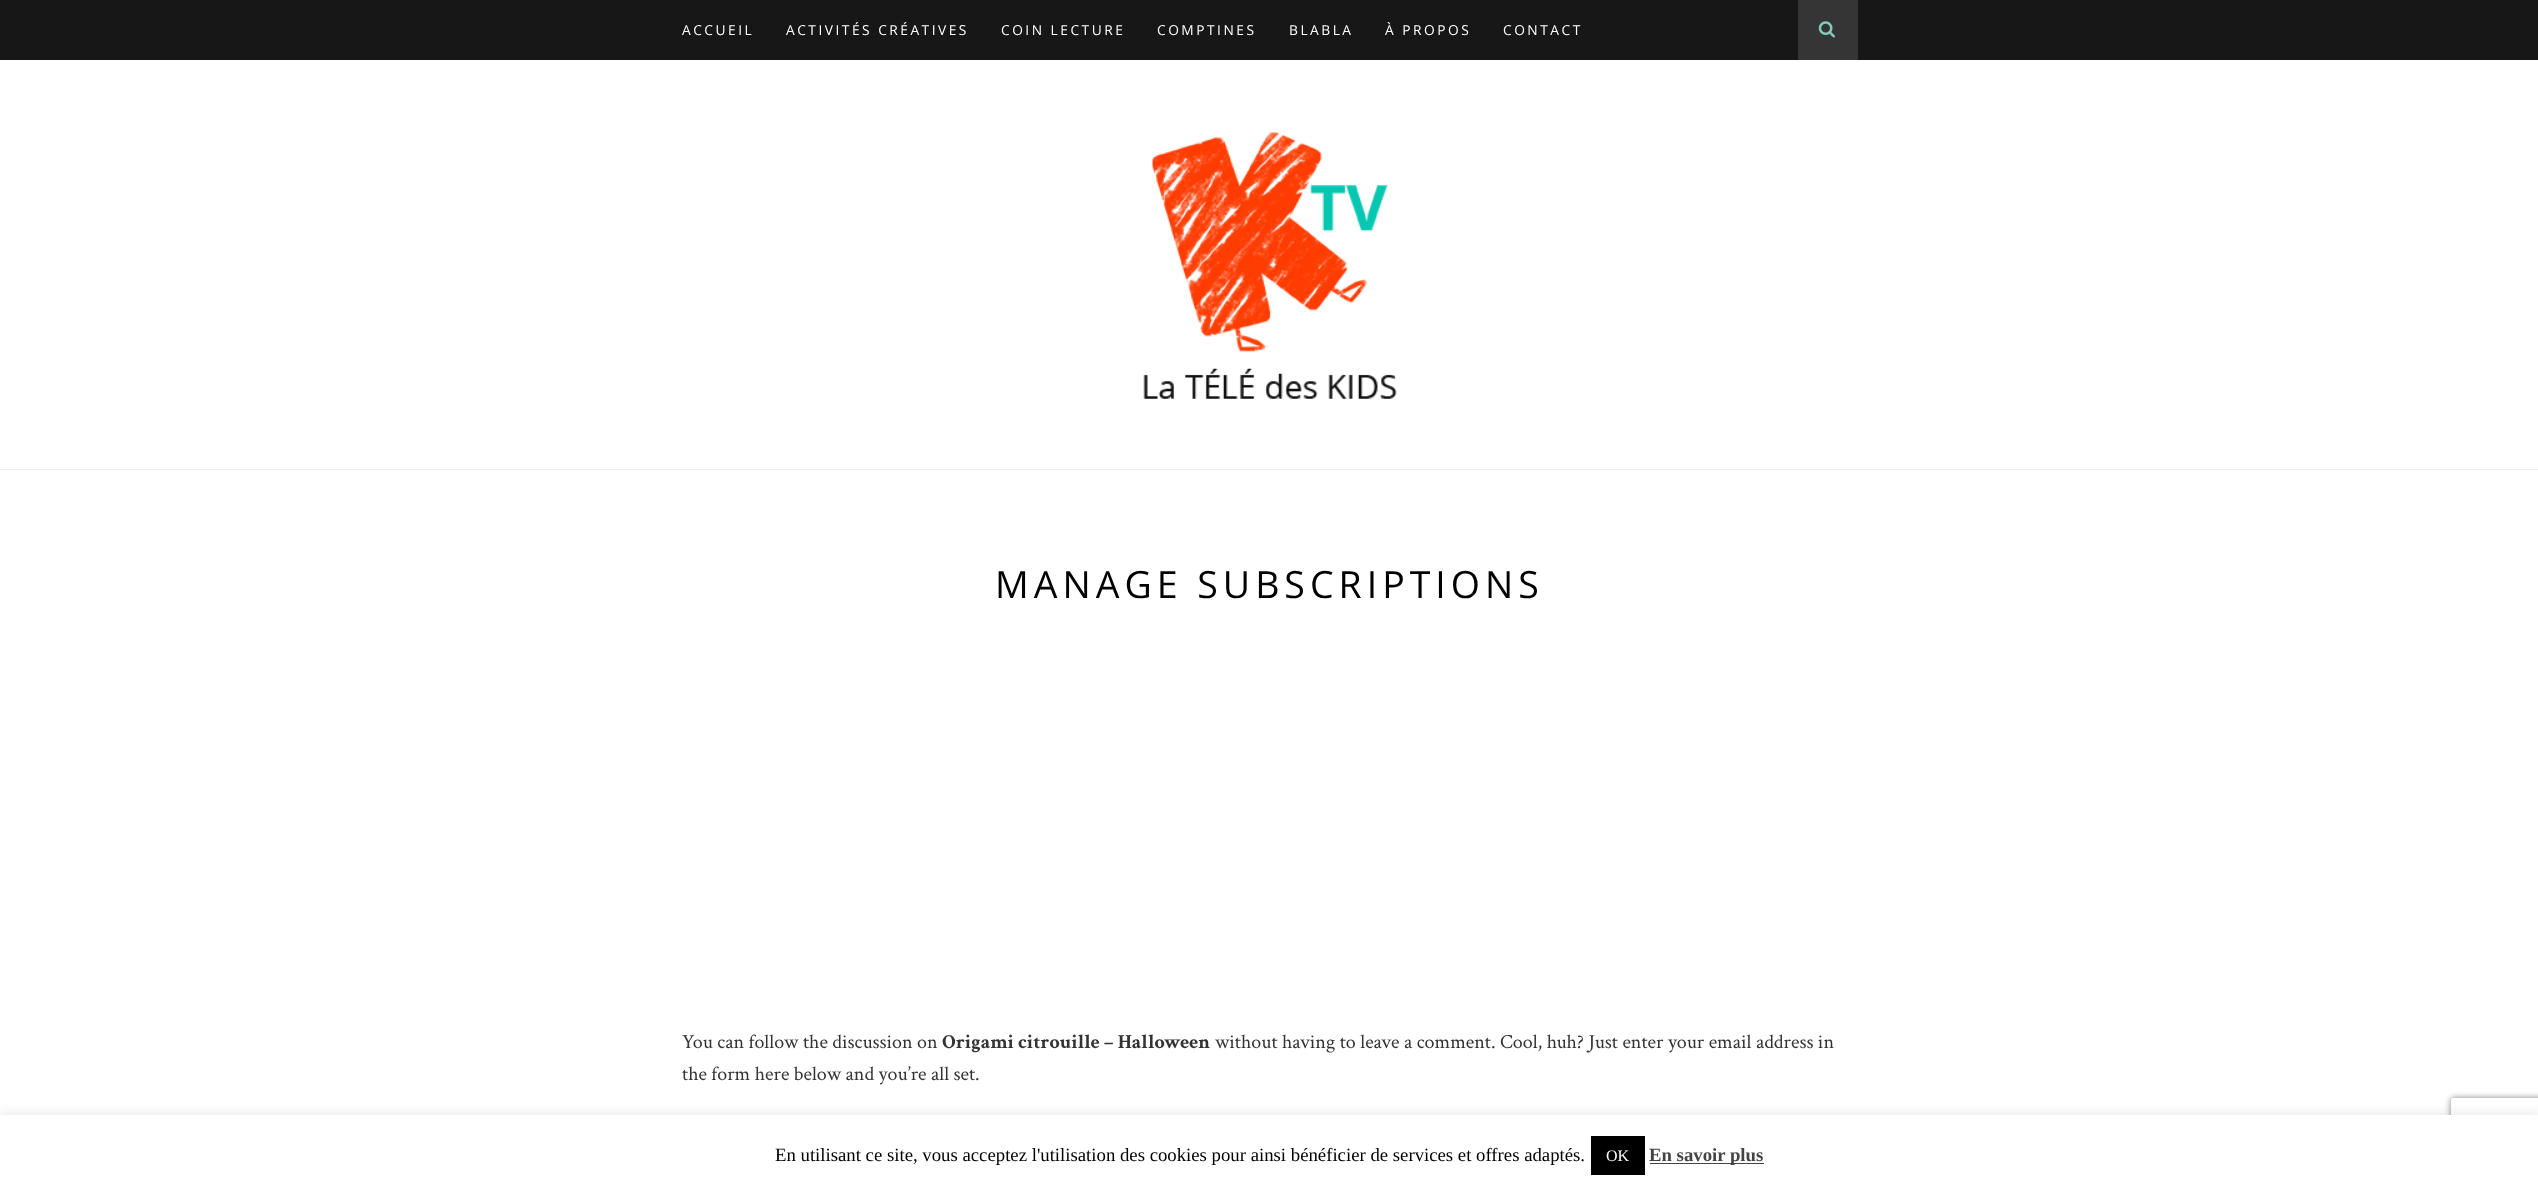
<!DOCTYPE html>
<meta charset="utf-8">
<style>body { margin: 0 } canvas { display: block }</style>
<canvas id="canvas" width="2538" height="1190"></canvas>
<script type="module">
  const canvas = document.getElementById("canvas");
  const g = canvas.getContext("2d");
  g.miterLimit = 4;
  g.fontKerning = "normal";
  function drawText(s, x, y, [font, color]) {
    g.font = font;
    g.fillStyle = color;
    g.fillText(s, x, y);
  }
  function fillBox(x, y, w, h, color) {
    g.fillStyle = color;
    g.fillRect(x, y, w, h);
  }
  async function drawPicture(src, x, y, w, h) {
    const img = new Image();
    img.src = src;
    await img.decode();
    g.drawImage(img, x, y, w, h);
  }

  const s1 = ["13.75px Open Sans", "#FFFFFF"];
  const s2 = ["37.5px Open Sans", "#000000"];
  const s3 = ["20px Crimson Text", "#333333"];
  const s4 = ["bold 20px Crimson Text", "#333333"];
  const s5 = ["18.75px Liberation Serif", "#000000"];
  const s6 = ["16px Liberation Serif", "#FFFFFF"];
  const s7 = ["bold 18.75px Liberation Serif", "#444444"];

  fillBox(0, 0, 2538, 1190, "#FFFFFF");
  fillBox(0, 0, 2538, 60, "#171717");
  g.letterSpacing = "2.5px";
  drawText("ACCUEIL", 682, 35, s1);
  drawText("ACTIVITÉS CRÉATIVES", 786, 35, s1);
  drawText("COIN LECTURE", 1001, 35, s1);
  drawText("COMPTINES", 1157, 35, s1);
  drawText("BLABLA", 1289, 35, s1);
  drawText("À PROPOS", 1385, 35, s1);
  drawText("CONTACT", 1503, 35, s1);
  fillBox(1798, 0, 60, 60, "#353535");
  await drawPicture("pic1.png", 1818, 21, 17, 17);
  fillBox(0, 469, 2538, 1, "#EEEEEE");
  await drawPicture("pic2.png", 1143, 132, 254, 267);
  g.letterSpacing = "5px";
  drawText("MANAGE SUBSCRIPTIONS", 995, 598, s2);
  g.letterSpacing = "0px";
  drawText("You can follow the discussion on", 682, 1048, s3);
  drawText("Origami citrouille – Halloween", 942, 1048, s4);
  drawText("without having to leave a comment. Cool, huh? Just enter your email address in", 1215, 1048, s3);
  drawText("the form here below and you’re all set.", 682, 1080, s3);
  g.fillStyle = "rgba(172, 171, 171, 0.3)";
  g.filter = "blur(6px)";
  g.beginPath();
  g.rect(0, 1114, 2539, 75);
  g.fill();
  g.filter = "none";
  g.save();
  g.beginPath();
  g.moveTo(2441, 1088);
  g.lineTo(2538, 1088);
  g.lineTo(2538, 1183);
  g.lineTo(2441, 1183);
  g.closePath();
  g.moveTo(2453.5, 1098);
  g.lineTo(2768.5, 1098);
  g.bezierCurveTo(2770, 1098, 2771, 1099, 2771, 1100.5);
  g.lineTo(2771, 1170.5);
  g.bezierCurveTo(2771, 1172, 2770, 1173, 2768.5, 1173);
  g.lineTo(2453.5, 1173);
  g.bezierCurveTo(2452, 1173, 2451, 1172, 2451, 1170.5);
  g.lineTo(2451, 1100.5);
  g.bezierCurveTo(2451, 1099, 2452, 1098, 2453.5, 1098);
  g.closePath();
  g.clip("evenodd");
  g.fillStyle = "#808080";
  g.filter = "blur(3px)";
  g.beginPath();
  g.roundRect(2451, 1098, 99, 75, 2.5);
  g.fill();
  g.filter = "none";
  g.restore();
  fillBox(0, 1115, 2538, 75, "#FFFFFF");
  drawText("En utilisant ce site, vous acceptez l'utilisation des cookies pour ainsi bénéficier de services et offres adaptés.", 775, 1161, s5);
  fillBox(1591, 1136, 54, 39, "#000000");
  drawText("OK", 1606, 1161, s6);
  fillBox(1650, 1163, 114, 1, "#444444");
  drawText("En savoir plus", 1649, 1161, s7);
</script>
